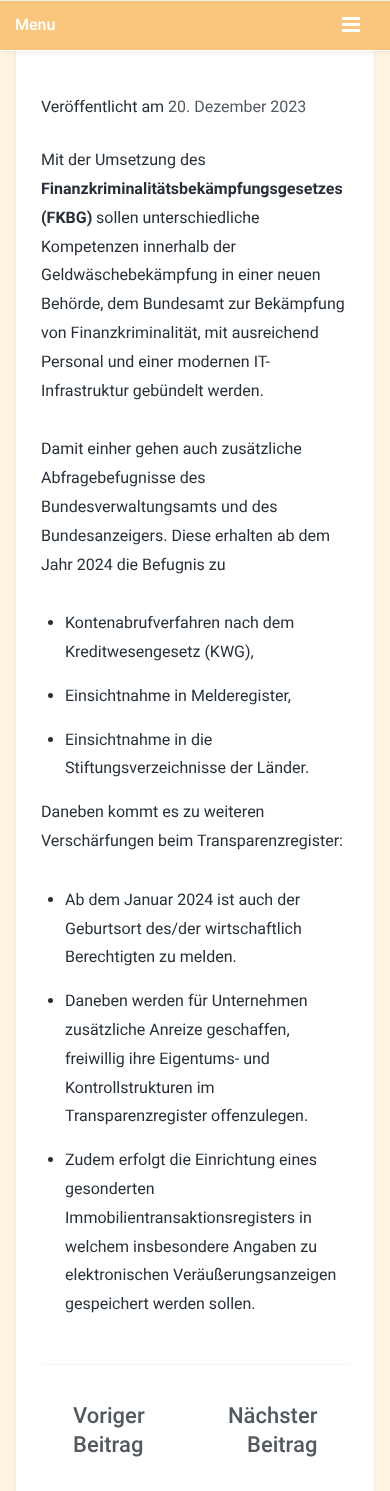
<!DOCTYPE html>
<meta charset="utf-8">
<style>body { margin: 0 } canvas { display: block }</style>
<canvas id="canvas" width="390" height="1491"></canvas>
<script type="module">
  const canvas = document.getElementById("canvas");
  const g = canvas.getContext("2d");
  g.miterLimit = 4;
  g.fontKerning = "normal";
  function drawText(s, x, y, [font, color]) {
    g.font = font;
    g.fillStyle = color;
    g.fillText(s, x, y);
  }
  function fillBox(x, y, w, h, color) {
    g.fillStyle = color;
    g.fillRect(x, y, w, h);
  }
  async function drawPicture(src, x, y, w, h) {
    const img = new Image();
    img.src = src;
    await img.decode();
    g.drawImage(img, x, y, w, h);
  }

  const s1 = ["500 16px Roboto", "#FFFFFF"];
  const s2 = ["16px Roboto", "#273039"];
  const s3 = ["16px Roboto", "#525961"];
  const s4 = ["bold 16px Roboto", "#273039"];
  const s5 = ["500 22px Roboto", "#525961"];

  fillBox(0, 0, 390, 1491, "#FEF2E0");
  fillBox(16, 51, 358, 1440, "#FFFFFF");
  g.strokeStyle = "#EDEDED";
  g.strokeRect(15.5, -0.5, 359, 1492);
  g.fillStyle = "rgba(0, 0, 0, 0.1)";
  g.filter = "blur(2.5px)";
  g.beginPath();
  g.rect(2, 0, 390, 51);
  g.fill();
  g.filter = "none";
  fillBox(0, 50, 390, 1, "#FFFFFF");
  fillBox(0, 0, 390, 1, "#EDEDED");
  fillBox(0, 1, 390, 49, "#FAC67E");
  drawText("Menu", 15, 30, s1);
  await drawPicture("pic1.png", 342, 17, 18, 15);
  drawText("Veröffentlicht am", 41, 112, s2);
  drawText("20. Dezember 2023", 168, 112, s3);
  drawText("Mit der Umsetzung des", 41, 165, s2);
  drawText("Finanzkriminalitätsbekämpfungsgesetzes", 41, 194, s4);
  drawText("(FKBG)", 41, 223, s4);
  drawText("sollen unterschiedliche", 96, 223, s2);
  drawText("Kompetenzen innerhalb der", 41, 252, s2);
  drawText("Geldwäschebekämpfung in einer neuen", 41, 280, s2);
  drawText("Behörde, dem Bundesamt zur Bekämpfung", 41, 309, s2);
  drawText("von Finanzkriminalität, mit ausreichend", 41, 338, s2);
  drawText("Personal und einer modernen IT-", 41, 367, s2);
  drawText("Infrastruktur gebündelt werden.", 41, 396, s2);
  drawText("Damit einher gehen auch zusätzliche", 41, 454, s2);
  drawText("Abfragebefugnisse des", 41, 483, s2);
  drawText("Bundesverwaltungsamts und des", 41, 512, s2);
  drawText("Bundesanzeigers. Diese erhalten ab dem", 41, 541, s2);
  drawText("Jahr 2024 die Befugnis zu", 41, 570, s2);
  g.beginPath();
  g.arc(50.5, 622.5, 2.5, 0, Math.PI * 2);
  g.fill();
  drawText("Kontenabrufverfahren nach dem", 65, 628, s2);
  drawText("Kreditwesengesetz (KWG),", 65, 657, s2);
  g.beginPath();
  g.arc(50.5, 695.5, 2.5, 0, Math.PI * 2);
  g.fill();
  drawText("Einsichtnahme in Melderegister,", 65, 701, s2);
  g.beginPath();
  g.arc(50.5, 739.5, 2.5, 0, Math.PI * 2);
  g.fill();
  drawText("Einsichtnahme in die", 65, 745, s2);
  drawText("Stiftungsverzeichnisse der Länder.", 65, 773, s2);
  drawText("Daneben kommt es zu weiteren", 41, 817, s2);
  drawText("Verschärfungen beim Transparenzregister:", 41, 846, s2);
  g.beginPath();
  g.arc(50.5, 899.5, 2.5, 0, Math.PI * 2);
  g.fill();
  drawText("Ab dem Januar 2024 ist auch der", 65, 905, s2);
  drawText("Geburtsort des/der wirtschaftlich", 65, 934, s2);
  drawText("Berechtigten zu melden.", 65, 962, s2);
  g.beginPath();
  g.arc(50.5, 1000.5, 2.5, 0, Math.PI * 2);
  g.fill();
  drawText("Daneben werden für Unternehmen", 65, 1006, s2);
  drawText("zusätzliche Anreize geschaffen,", 65, 1035, s2);
  drawText("freiwillig ihre Eigentums- und", 65, 1064, s2);
  drawText("Kontrollstrukturen im", 65, 1093, s2);
  drawText("Transparenzregister offenzulegen.", 65, 1121, s2);
  g.beginPath();
  g.arc(50.5, 1159.5, 2.5, 0, Math.PI * 2);
  g.fill();
  drawText("Zudem erfolgt die Einrichtung eines", 65, 1165, s2);
  drawText("gesonderten", 65, 1194, s2);
  drawText("Immobilientransaktionsregisters in", 65, 1223, s2);
  drawText("welchem insbesondere Angaben zu", 65, 1252, s2);
  drawText("elektronischen Veräußerungsanzeigen", 65, 1280, s2);
  drawText("gespeichert werden sollen.", 65, 1309, s2);
  fillBox(41, 1364, 308, 1, "#F4F5F5");
  drawText("Voriger", 73, 1423, s5);
  drawText("Beitrag", 73, 1452, s5);
  drawText("Nächster", 228, 1423, s5);
  drawText("Beitrag", 247, 1452, s5);
</script>
